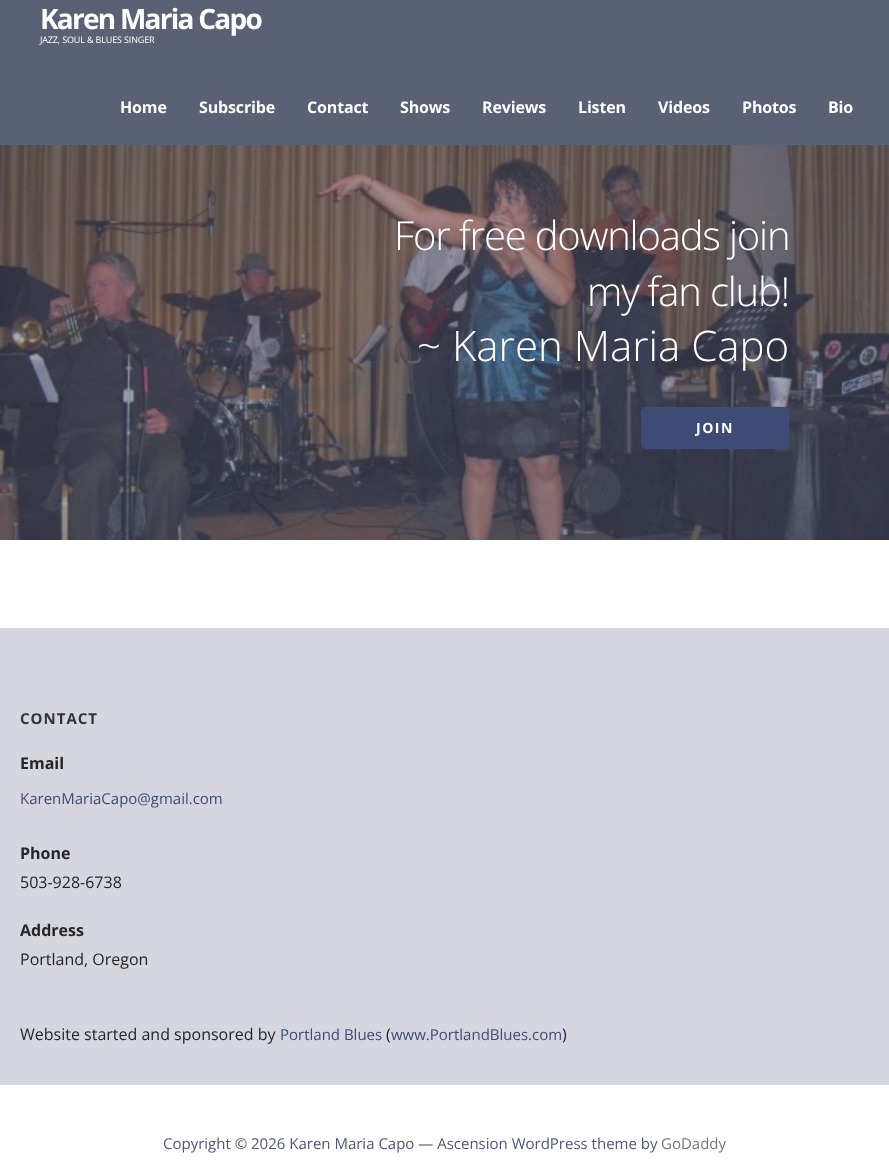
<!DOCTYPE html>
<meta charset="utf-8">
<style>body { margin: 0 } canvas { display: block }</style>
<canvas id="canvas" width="889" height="1164"></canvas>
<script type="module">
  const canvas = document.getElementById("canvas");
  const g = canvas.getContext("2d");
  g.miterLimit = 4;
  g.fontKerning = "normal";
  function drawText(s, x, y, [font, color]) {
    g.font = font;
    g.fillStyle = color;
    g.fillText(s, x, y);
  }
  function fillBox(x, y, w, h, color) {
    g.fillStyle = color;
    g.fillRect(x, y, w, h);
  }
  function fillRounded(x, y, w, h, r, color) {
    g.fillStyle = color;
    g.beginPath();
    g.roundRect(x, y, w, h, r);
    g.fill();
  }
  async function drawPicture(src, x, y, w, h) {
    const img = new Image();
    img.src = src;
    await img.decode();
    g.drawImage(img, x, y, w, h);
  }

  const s1 = ["bold 28px Open Sans", "#FFFFFF"];
  const s2 = ["9px Open Sans", "#FFFFFF"];
  const s3 = ["bold 16px Open Sans", "#FFFFFF"];
  const s4 = ["300 40px Open Sans", "#FFFFFF"];
  const s5 = ["300 42px Open Sans", "#FFFFFF"];
  const s6 = ["bold 14px Open Sans", "#FFFFFF"];
  const s7 = ["bold 15px Open Sans", "#353535"];
  const s8 = ["bold 16px Open Sans", "#252525"];
  const s9 = ["15px Open Sans", "#3E4C75"];
  const s10 = ["16px Open Sans", "#252525"];
  const s11 = ["15px Open Sans", "#4F5875"];
  const s12 = ["15px Open Sans", "#757575"];

  fillBox(0, 0, 889, 1164, "#FFFFFF");
  fillBox(0, 0, 889, 145, "#5A6175");
  g.letterSpacing = "-1.75px";
  drawText("Karen Maria Capo", 40, 29, s1);
  g.letterSpacing = "-0.15px";
  drawText("JAZZ, SOUL & BLUES SINGER", 40, 43, s2);
  drawText("Home", 120, 113, s3);
  drawText("Subscribe", 199, 113, s3);
  drawText("Contact", 307, 113, s3);
  drawText("Shows", 400, 113, s3);
  drawText("Reviews", 482, 113, s3);
  drawText("Listen", 578, 113, s3);
  drawText("Videos", 658, 113, s3);
  drawText("Photos", 742, 113, s3);
  drawText("Bio", 828, 113, s3);
  await drawPicture("pic1.png", 0, 145, 889, 395);
  g.letterSpacing = "-1.2px";
  drawText("For free downloads join", 394, 250, s4);
  drawText("my fan club!", 587, 306, s4);
  g.letterSpacing = "0px";
  drawText("~ Karen Maria Capo", 417, 361, s5);
  fillRounded(641, 407, 148, 42, 5, "#3E4C75");
  g.letterSpacing = "1.5px";
  drawText("JOIN", 696, 433, s6);
  fillBox(0, 628, 889, 457, "#D5D6E0");
  g.letterSpacing = "1px";
  drawText("CONTACT", 20, 724, s7);
  g.letterSpacing = "0px";
  drawText("Email", 20, 769, s8);
  drawText("KarenMariaCapo@gmail.com", 20, 804, s9);
  drawText("Phone", 20, 859, s8);
  drawText("503-928-6738", 20, 888, s10);
  drawText("Address", 20, 936, s8);
  drawText("Portland, Oregon", 20, 965, s10);
  drawText("Website started and sponsored by", 20, 1040, s10);
  drawText("Portland Blues", 280, 1040, s9);
  drawText("(", 386, 1040, s10);
  drawText("www.PortlandBlues.com", 391, 1040, s9);
  drawText(")", 562, 1040, s10);
  drawText("Copyright © 2026 Karen Maria Capo — Ascension WordPress theme by", 163, 1149, s11);
  drawText("GoDaddy", 661, 1149, s12);
</script>
